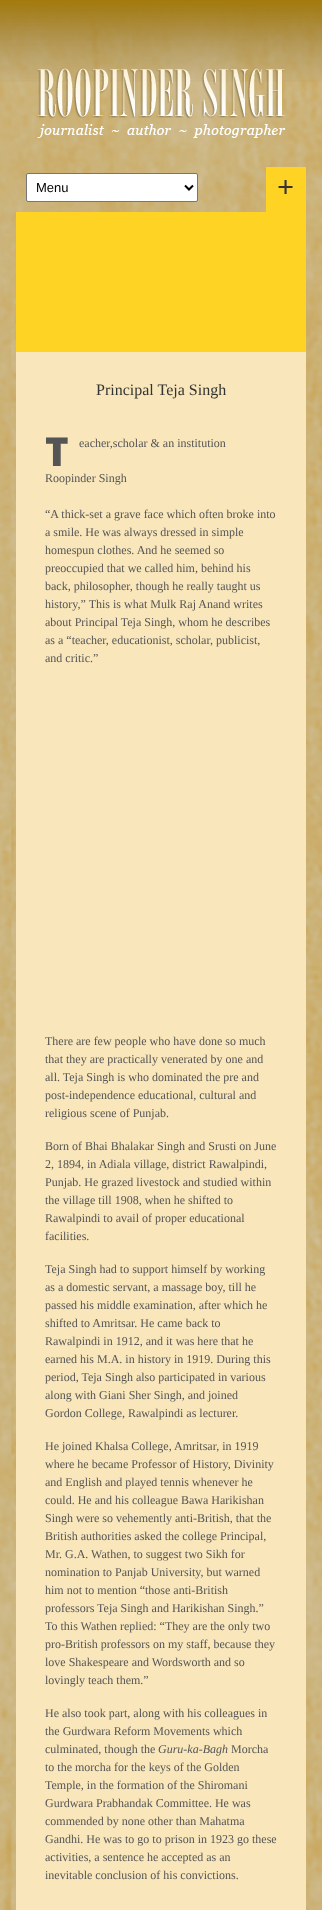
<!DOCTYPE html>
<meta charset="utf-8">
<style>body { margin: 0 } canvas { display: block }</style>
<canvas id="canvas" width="322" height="1910"></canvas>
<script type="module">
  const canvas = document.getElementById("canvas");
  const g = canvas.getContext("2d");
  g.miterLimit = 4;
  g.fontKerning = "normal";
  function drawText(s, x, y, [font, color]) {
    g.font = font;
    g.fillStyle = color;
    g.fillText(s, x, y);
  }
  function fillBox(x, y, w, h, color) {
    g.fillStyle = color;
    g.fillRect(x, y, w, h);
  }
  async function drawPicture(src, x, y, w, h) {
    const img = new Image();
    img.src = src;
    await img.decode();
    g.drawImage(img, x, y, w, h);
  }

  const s1 = ["13px Liberation Sans", "#000000"];
  const s2 = ["bold 30px Liberation Serif", "#333333"];
  const s3 = ["16px Liberation Serif", "#333333"];
  const s4 = ["900 40px Noto Sans", "#555555"];
  const s5 = ["12px Liberation Serif", "#555555"];
  const s6 = ["italic 12px Liberation Serif", "#555555"];

  fillBox(0, 0, 322, 1910, "#FFFFFF");
  await drawPicture("pic1.png", 0, 0, 322, 1910);
  await drawPicture("pic2.png", 0, 0, 322, 82);
  await drawPicture("pic3.png", 37, 68, 249, 70);
  g.beginPath();
  g.roundRect(26.5, 173.5, 171, 28, 1.5);
  g.fill();
  g.strokeStyle = "#767676";
  g.stroke();
  g.beginPath();
  g.moveTo(185, 185.5);
  g.lineTo(189, 189.5);
  g.lineTo(193, 185.5);
  g.strokeStyle = "#000000";
  g.lineWidth = 2;
  g.stroke();
  drawText("Menu", 36, 192, s1);
  fillBox(266, 167, 40, 45, "#FFD323");
  drawText("+", 277, 197, s2);
  fillBox(16, 212, 290, 140, "#FFD323");
  fillBox(16, 352, 290, 1558, "#F9E7BB");
  drawText("Principal Teja Singh", 96, 395, s3);
  drawText("T", 45, 466, s4);
  drawText("eacher,scholar & an institution", 79, 447, s5);
  drawText("Roopinder Singh", 45, 482, s5);
  drawText("“A thick-set a grave face which often broke into", 45, 518, s5);
  drawText("a smile. He was always dressed in simple", 45, 536, s5);
  drawText("homespun clothes. And he seemed so", 45, 554, s5);
  drawText("preoccupied that we called him, behind his", 45, 572, s5);
  drawText("back, philosopher, though he really taught us", 45, 590, s5);
  drawText("history,” This is what Mulk Raj Anand writes", 45, 608, s5);
  drawText("about Principal Teja Singh, whom he describes", 45, 626, s5);
  drawText("as a “teacher, educationist, scholar, publicist,", 45, 644, s5);
  drawText("and critic.”", 45, 662, s5);
  drawText("There are few people who have done so much", 45, 1045, s5);
  drawText("that they are practically venerated by one and", 45, 1063, s5);
  drawText("all. Teja Singh is who dominated the pre and", 45, 1081, s5);
  drawText("post-independence educational, cultural and", 45, 1099, s5);
  drawText("religious scene of Punjab.", 45, 1117, s5);
  drawText("Born of Bhai Bhalakar Singh and Srusti on June", 45, 1150, s5);
  drawText("2, 1894, in Adiala village, district Rawalpindi,", 45, 1168, s5);
  drawText("Punjab. He grazed livestock and studied within", 45, 1186, s5);
  drawText("the village till 1908, when he shifted to", 45, 1204, s5);
  drawText("Rawalpindi to avail of proper educational", 45, 1222, s5);
  drawText("facilities.", 45, 1240, s5);
  drawText("Teja Singh had to support himself by working", 45, 1273, s5);
  drawText("as a domestic servant, a massage boy, till he", 45, 1291, s5);
  drawText("passed his middle examination, after which he", 45, 1309, s5);
  drawText("shifted to Amritsar. He came back to", 45, 1327, s5);
  drawText("Rawalpindi in 1912, and it was here that he", 45, 1345, s5);
  drawText("earned his M.A. in history in 1919. During this", 45, 1363, s5);
  drawText("period, Teja Singh also participated in various", 45, 1381, s5);
  drawText("along with Giani Sher Singh, and joined", 45, 1399, s5);
  drawText("Gordon College, Rawalpindi as lecturer.", 45, 1417, s5);
  drawText("He joined Khalsa College, Amritsar, in 1919", 45, 1450, s5);
  drawText("where he became Professor of History, Divinity", 45, 1468, s5);
  drawText("and English and played tennis whenever he", 45, 1486, s5);
  drawText("could. He and his colleague Bawa Harikishan", 45, 1504, s5);
  drawText("Singh were so vehemently anti-British, that the", 45, 1522, s5);
  drawText("British authorities asked the college Principal,", 45, 1540, s5);
  drawText("Mr. G.A. Wathen, to suggest two Sikh for", 45, 1558, s5);
  drawText("nomination to Panjab University, but warned", 45, 1576, s5);
  drawText("him not to mention “those anti-British", 45, 1594, s5);
  drawText("professors Teja Singh and Harikishan Singh.”", 45, 1612, s5);
  drawText("To this Wathen replied: “They are the only two", 45, 1630, s5);
  drawText("pro-British professors on my staff, because they", 45, 1648, s5);
  drawText("love Shakespeare and Wordsworth and so", 45, 1666, s5);
  drawText("lovingly teach them.”", 45, 1684, s5);
  drawText("He also took part, along with his colleagues in", 45, 1717, s5);
  drawText("the Gurdwara Reform Movements which", 45, 1735, s5);
  drawText("culminated, though the", 45, 1753, s5);
  drawText("Guru-ka-Bagh", 158, 1753, s6);
  drawText("Morcha", 231, 1753, s5);
  drawText("to the morcha for the keys of the Golden", 45, 1771, s5);
  drawText("Temple, in the formation of the Shiromani", 45, 1789, s5);
  drawText("Gurdwara Prabhandak Committee. He was", 45, 1807, s5);
  drawText("commended by none other than Mahatma", 45, 1825, s5);
  drawText("Gandhi. He was to go to prison in 1923 go these", 45, 1843, s5);
  drawText("activities, a sentence he accepted as an", 45, 1861, s5);
  drawText("inevitable conclusion of his convictions.", 45, 1879, s5);
</script>
